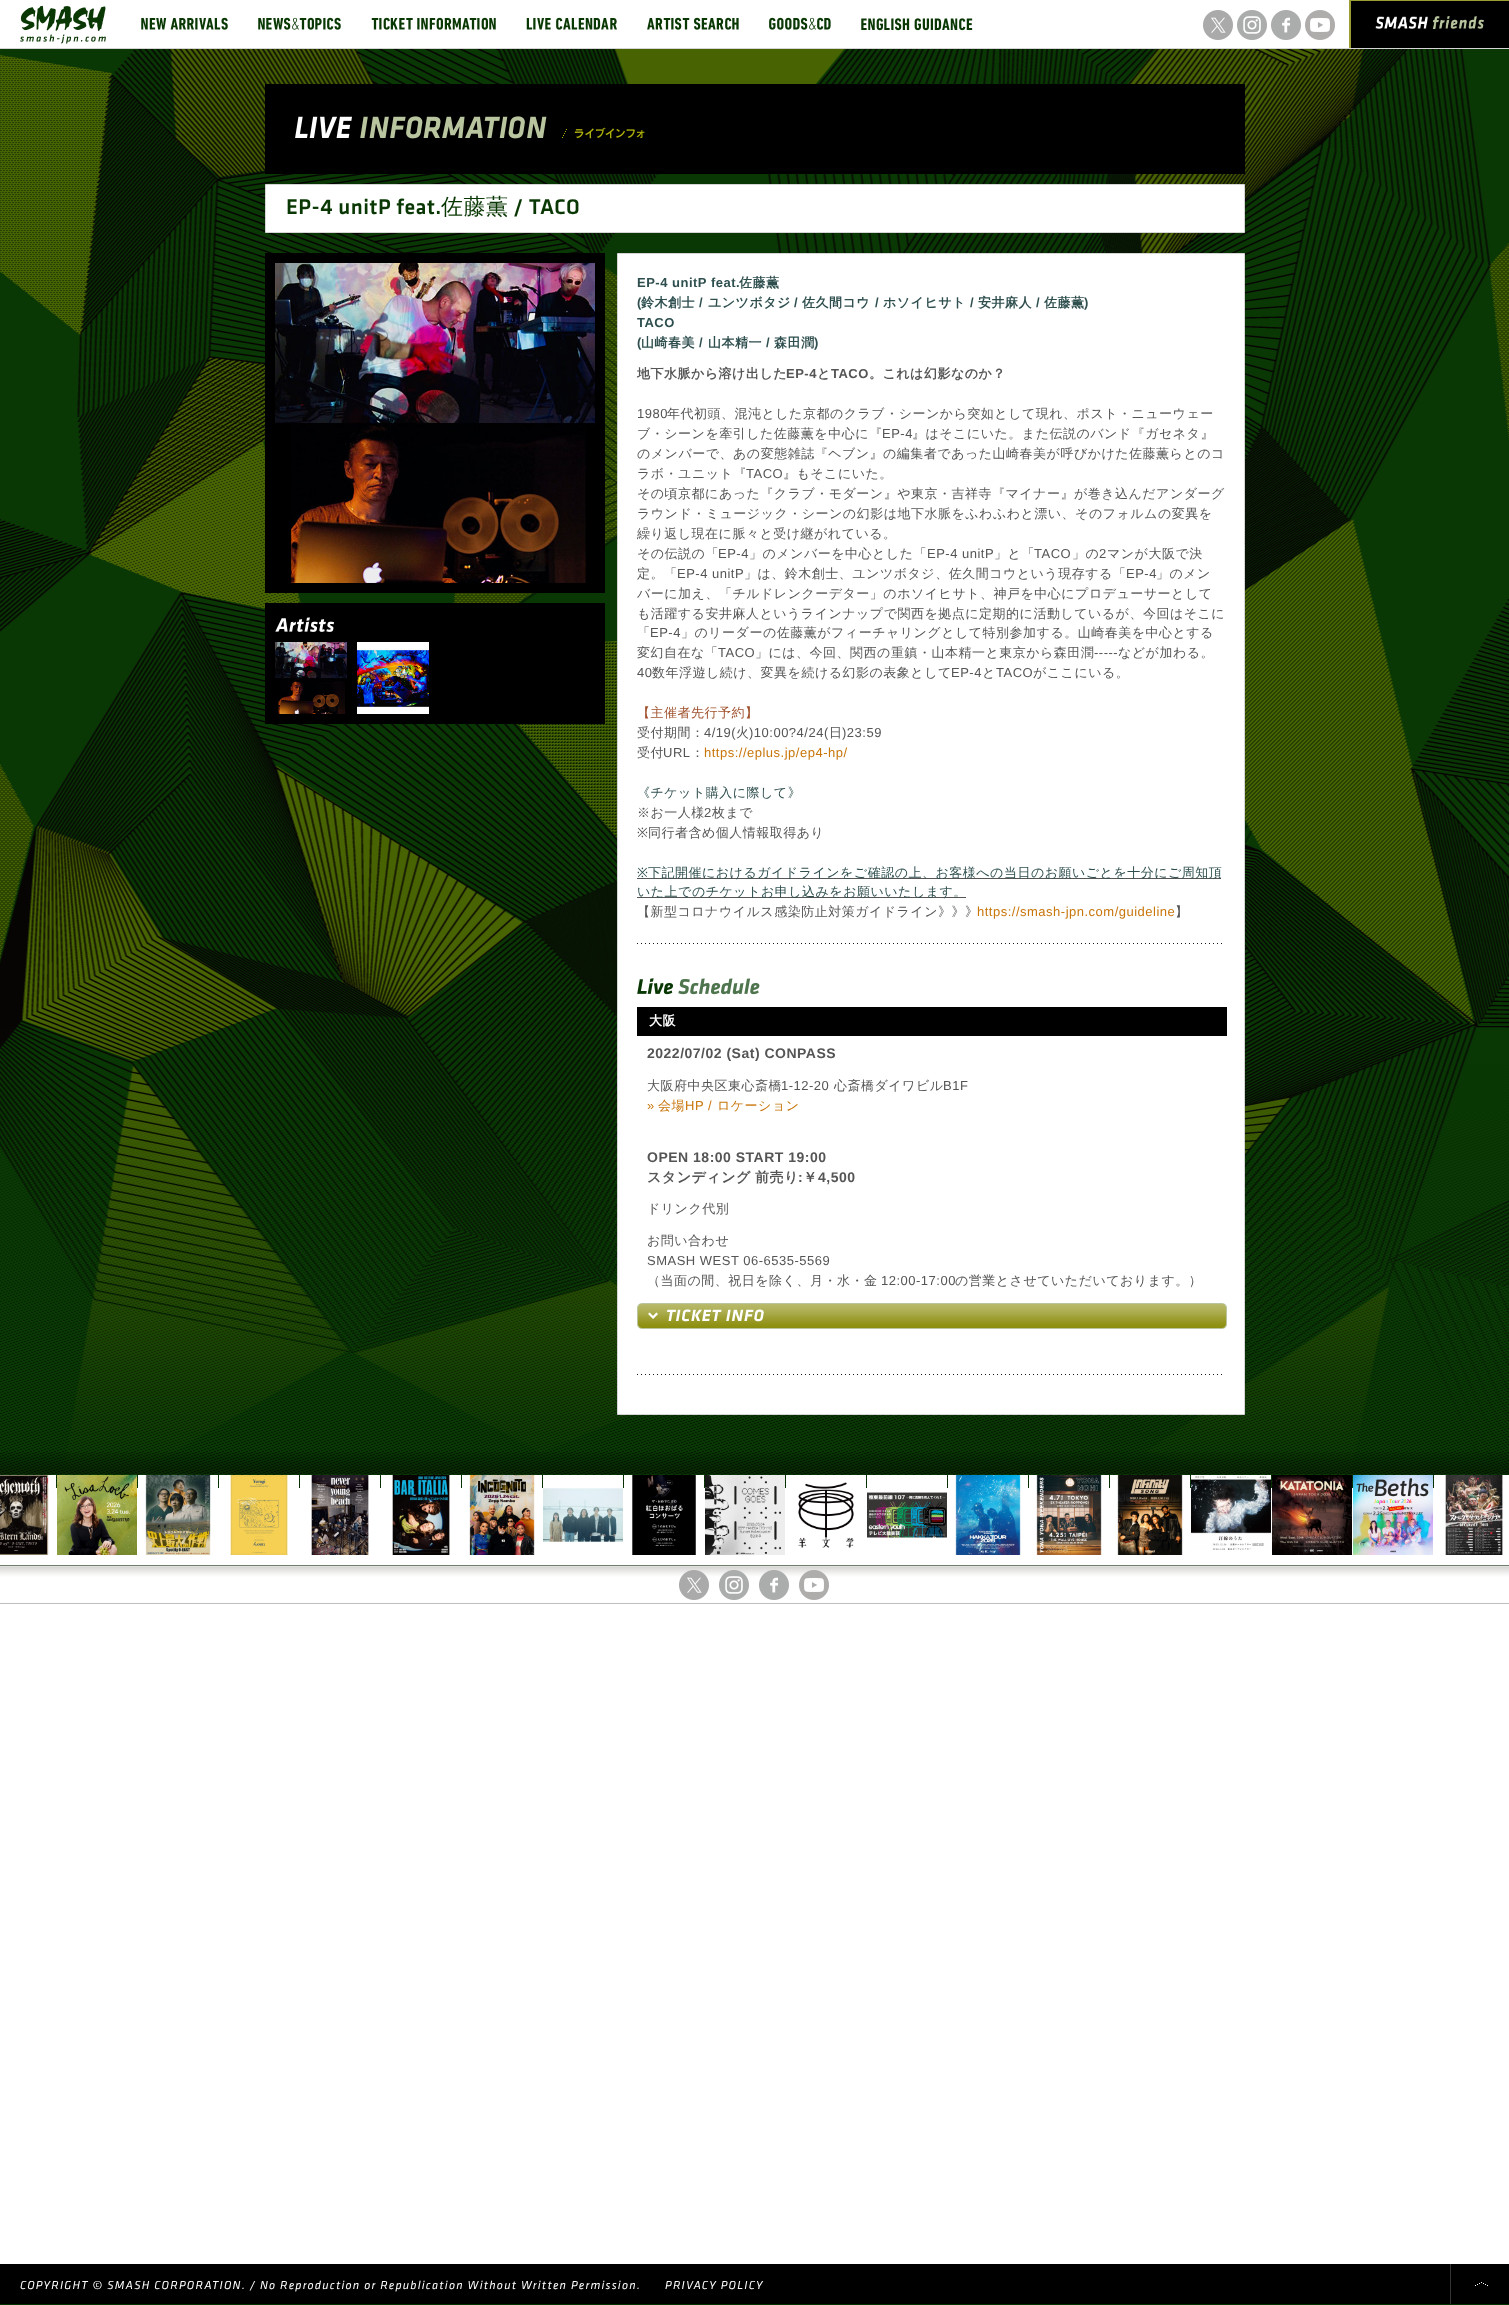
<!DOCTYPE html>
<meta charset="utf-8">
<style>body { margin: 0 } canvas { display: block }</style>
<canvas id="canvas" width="1509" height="2305"></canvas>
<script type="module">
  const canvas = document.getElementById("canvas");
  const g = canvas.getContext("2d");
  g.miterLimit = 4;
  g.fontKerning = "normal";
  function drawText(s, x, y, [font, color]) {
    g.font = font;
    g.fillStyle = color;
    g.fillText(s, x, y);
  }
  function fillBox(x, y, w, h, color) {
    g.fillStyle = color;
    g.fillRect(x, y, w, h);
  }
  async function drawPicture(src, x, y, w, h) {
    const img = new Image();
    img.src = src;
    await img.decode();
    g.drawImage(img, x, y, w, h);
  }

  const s1 = ["500 22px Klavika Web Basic", "#093804"];
  const s2 = ["500 22px WenQuanYi Zen Hei", "#093804"];
  const s3 = ["bold 13px Liberation Sans", "#2F4F4F"];
  const s4 = ["bold 13px WenQuanYi Zen Hei", "#2F4F4F"];
  const s5 = ["bold 13px WenQuanYi Zen Hei", "#555555"];
  const s6 = ["bold 13px Liberation Sans", "#555555"];
  const s7 = ["13px Liberation Sans", "#555555"];
  const s8 = ["500 13px WenQuanYi Zen Hei", "#555555"];
  const s9 = ["500 13px WenQuanYi Zen Hei", "#A0522D"];
  const s10 = ["13px Liberation Sans", "#C8750A"];
  const s11 = ["500 13px WenQuanYi Zen Hei", "#2F4F4F"];
  const s12 = ["13px Noto Sans", "#555555"];
  const s13 = ["13px Noto Sans", "#2F4F4F"];
  const s14 = ["bold 13px WenQuanYi Zen Hei", "#FFFFFF"];
  const s15 = ["bold 14px Liberation Sans", "#555555"];
  const s16 = ["500 13px WenQuanYi Zen Hei", "#C8750A"];
  const s17 = ["bold 14px WenQuanYi Zen Hei", "#555555"];
  const s18 = ["12px Klavika Web Basic", "#FFFFFF"];

  fillBox(0, 0, 1509, 2305, "#FFFFFF");
  await drawPicture("pic1.png", 0, 49, 1509, 1439);
  fillBox(0, 48, 1509, 1, "#D5D5D5");
  await drawPicture("pic2.png", 20, 5, 86, 39);
  await drawPicture("pic3.png", 141, 17, 87, 13);
  await drawPicture("pic4.png", 258, 17, 83, 13);
  await drawPicture("pic5.png", 371, 17, 125, 13);
  await drawPicture("pic6.png", 526, 17, 91, 13);
  await drawPicture("pic7.png", 647, 17, 92, 13);
  await drawPicture("pic8.png", 769, 17, 62, 13);
  await drawPicture("pic9.png", 861, 18, 112, 13);
  await drawPicture("pic10.png", 1203, 10, 30, 30);
  await drawPicture("pic11.png", 1237, 10, 30, 30);
  await drawPicture("pic12.png", 1271, 10, 30, 30);
  await drawPicture("pic13.png", 1305, 10, 30, 30);
  fillBox(1349, 0, 160, 48, "#9B9C33");
  fillBox(1351, 1, 158, 47, "#000000");
  await drawPicture("pic14.png", 1375, 16, 109, 13);
  await drawPicture("pic15.png", 0, 1452, 1509, 22);
  fillBox(265, 84, 980, 90, "#000000");
  await drawPicture("pic16.png", 295, 116, 350, 23);
  g.fillStyle = "#FFFFFF";
  g.beginPath();
  g.rect(265.5, 184.5, 979, 48);
  g.fill();
  g.strokeStyle = "#D5D5D5";
  g.stroke();
  g.letterSpacing = "0.5px";
  drawText("EP-4 unitP feat.", 286, 214, s1);
  drawText("佐藤薫", 441, 214, s2);
  drawText("/ TACO", 513, 214, s1);
  fillBox(265, 253, 340, 340, "#000000");
  await drawPicture("pic17.png", 275, 263, 320, 320);
  fillBox(265, 603, 340, 121, "#000000");
  await drawPicture("pic18.png", 275, 617, 59, 15);
  await drawPicture("pic19.png", 275, 642, 72, 72);
  await drawPicture("pic20.png", 357, 642, 72, 72);
  g.fillStyle = "#FFFFFF";
  g.beginPath();
  g.rect(617.5, 253.5, 627, 1161);
  g.fill();
  g.stroke();
  await drawPicture("pic21.png", 637, 943, 585, 1);
  drawText("EP-4 unitP feat.", 637, 287, s3);
  drawText("佐藤薫", 739, 287, s4);
  drawText("(", 637, 307, s3);
  drawText("鈴木創士", 641, 307, s4);
  drawText("/", 699, 307, s3);
  drawText("ユンツボタジ", 708, 307, s4);
  drawText("/", 794, 307, s3);
  drawText("佐久間コウ", 802, 307, s4);
  drawText("/", 875, 307, s3);
  drawText("ホソイヒサト", 883, 307, s4);
  drawText("/", 970, 307, s3);
  drawText("安井麻人", 978, 307, s4);
  drawText("/", 1036, 307, s3);
  drawText("佐藤薫", 1044, 307, s4);
  drawText(")", 1084, 307, s3);
  drawText("TACO", 637, 327, s3);
  drawText("(", 637, 347, s3);
  drawText("山崎春美", 641, 347, s4);
  drawText("/", 699, 347, s3);
  drawText("山本精一", 708, 347, s4);
  drawText("/", 766, 347, s3);
  drawText("森田潤", 774, 347, s4);
  drawText(")", 814, 347, s3);
  drawText("地下水脈から溶け出した", 637, 378, s5);
  drawText("EP-4", 786, 378, s6);
  drawText("と", 817, 378, s5);
  drawText("TACO", 831, 378, s6);
  drawText("。これは幻影なのか？", 869, 378, s5);
  drawText("1980", 637, 418, s7);
  drawText("年代初頭、混沌とした京都のクラブ・シーンから突如として現れ、ポスト・ニューウェー", 667, 418, s8);
  drawText("ブ・シーンを牽引した佐藤薫を中心に『", 637, 438, s8);
  drawText("EP-4", 882, 438, s7);
  drawText("』はそこにいた。また伝説のバンド『ガセネタ』", 912, 438, s8);
  drawText("のメンバーで、あの変態雑誌『ヘブン』の編集者であった山崎春美が呼びかけた佐藤薫らとのコ", 637, 458, s8);
  drawText("ラボ・ユニット『", 637, 478, s8);
  drawText("TACO", 746, 478, s7);
  drawText("』もそこにいた。", 783, 478, s8);
  drawText("その頃京都にあった『クラブ・モダーン』や東京・吉祥寺『マイナー』が巻き込んだアンダーグ", 637, 498, s8);
  drawText("ラウンド・ミュージック・シーンの幻影は地下水脈をふわふわと漂い、そのフォルムの変異を", 637, 518, s8);
  drawText("繰り返し現在に脈々と受け継がれている。", 637, 538, s8);
  drawText("その伝説の「", 637, 558, s8);
  drawText("EP-4", 718, 558, s7);
  drawText("」のメンバーを中心とした「", 749, 558, s8);
  drawText("EP-4 unitP", 927, 558, s7);
  drawText("」と「", 994, 558, s8);
  drawText("TACO", 1034, 558, s7);
  drawText("」の", 1072, 558, s8);
  drawText("2", 1099, 558, s7);
  drawText("マンが大阪で決", 1107, 558, s8);
  drawText("定。「", 637, 578, s8);
  drawText("EP-4 unitP", 677, 578, s7);
  drawText("」は、鈴木創士、ユンツボタジ、佐久間コウという現存する「", 744, 578, s8);
  drawText("EP-4", 1126, 578, s7);
  drawText("」のメン", 1156, 578, s8);
  drawText("バーに加え、「チルドレンクーデター」のホソイヒサト、神戸を中心にプロデューサーとして", 637, 598, s8);
  drawText("も活躍する安井麻人というラインナップで関西を拠点に定期的に活動しているが、今回はそこに", 637, 618, s8);
  drawText("「", 637, 637, s8);
  drawText("EP-4", 650, 637, s7);
  drawText("」のリーダーの佐藤薫がフィーチャリングとして特別参加する。山崎春美を中心とする", 681, 637, s8);
  drawText("変幻自在な「", 637, 657, s8);
  drawText("TACO", 718, 657, s7);
  drawText("」には、今回、関西の重鎮・山本精一と東京から森田潤", 755, 657, s8);
  drawText("-----", 1094, 657, s7);
  drawText("などが加わる。", 1118, 657, s8);
  drawText("40", 637, 677, s7);
  drawText("数年浮遊し続け、変異を続ける幻影の表象として", 652, 677, s8);
  drawText("EP-4", 951, 677, s7);
  drawText("と", 982, 677, s8);
  drawText("TACO", 996, 677, s7);
  drawText("がここにいる。", 1033, 677, s8);
  drawText("【主催者先行予約】", 637, 717, s9);
  drawText("受付期間：", 637, 737, s8);
  drawText("4/19(", 704, 737, s7);
  drawText("火", 736, 737, s8);
  drawText(")10:00?4/24(", 749, 737, s7);
  drawText("日", 829, 737, s8);
  drawText(")23:59", 842, 737, s7);
  drawText("受付", 637, 757, s8);
  drawText("URL", 663, 757, s7);
  drawText("：", 691, 757, s8);
  drawText("https://eplus.jp/ep4-hp/", 704, 757, s10);
  drawText("《チケット購入に際して》", 637, 797, s11);
  drawText("※お一人様", 637, 817, s8);
  drawText("2", 704, 817, s7);
  drawText("枚まで", 712, 817, s8);
  drawText("※", 637, 837, s12);
  drawText("同行者含め個人情報取得あり", 648, 837, s8);
  drawText("※", 637, 877, s13);
  fillBox(637, 878, 584, 1, "#555555");
  drawText("下記開催におけるガイドラインをご確認の上、お客様への当日のお願いごとを十分にご周知頂", 648, 877, s11);
  fillBox(637, 897, 329, 1, "#555555");
  drawText("いた上でのチケットお申し込みをお願いいたします。", 637, 896, s11);
  drawText("【新型コロナウイルス感染防止対策ガイドライン》》》", 637, 916, s8);
  drawText("https://smash-jpn.com/guideline", 977, 916, s10);
  drawText("】", 1175, 916, s8);
  await drawPicture("pic21.png", 637, 1374, 585, 1);
  await drawPicture("pic22.png", 637, 978, 123, 17);
  fillBox(637, 1007, 590, 29, "#000000");
  drawText("大阪", 649, 1025, s14);
  drawText("2022/07/02 (Sat) CONPASS", 647, 1058, s15);
  drawText("大阪府中央区東心斎橋", 647, 1090, s8);
  drawText("1-12-20", 781, 1090, s7);
  drawText("心斎橋ダイワビル", 834, 1090, s8);
  drawText("B1F", 943, 1090, s7);
  drawText("»", 647, 1110, s10);
  drawText("会場", 658, 1110, s16);
  drawText("HP /", 685, 1110, s10);
  drawText("ロケーション", 717, 1110, s16);
  drawText("OPEN 18:00 START 19:00", 647, 1162, s15);
  drawText("スタンディング", 647, 1182, s17);
  drawText("前売り", 755, 1182, s17);
  drawText(":", 798, 1182, s15);
  drawText("￥", 803, 1182, s17);
  drawText("4,500", 818, 1182, s15);
  drawText("ドリンク代別", 647, 1213, s8);
  drawText("お問い合わせ", 647, 1245, s8);
  drawText("SMASH WEST 06-6535-5569", 647, 1265, s7);
  drawText("（当面の間、祝日を除く、月・水・金", 647, 1285, s8);
  drawText("12:00-17:00", 881, 1285, s7);
  drawText("の営業とさせていただいております。）", 955, 1285, s8);
  await drawPicture("pic23.png", 637, 1303, 590, 26);
  await drawPicture("pic24.png", 0, 1475, 56, 80);
  await drawPicture("pic25.png", 57, 1475, 80, 80);
  await drawPicture("pic26.png", 138, 1475, 80, 80);
  await drawPicture("pic27.png", 219, 1475, 80, 80);
  await drawPicture("pic28.png", 300, 1475, 80, 80);
  await drawPicture("pic29.png", 381, 1475, 80, 80);
  await drawPicture("pic30.png", 462, 1475, 80, 80);
  await drawPicture("pic31.png", 543, 1475, 80, 67);
  await drawPicture("pic32.png", 624, 1475, 80, 80);
  await drawPicture("pic33.png", 705, 1475, 80, 80);
  await drawPicture("pic34.png", 786, 1475, 80, 73);
  await drawPicture("pic35.png", 867, 1475, 80, 63);
  await drawPicture("pic36.png", 948, 1475, 80, 80);
  await drawPicture("pic37.png", 1029, 1475, 80, 80);
  await drawPicture("pic38.png", 1110, 1475, 80, 80);
  await drawPicture("pic39.png", 1191, 1475, 80, 75);
  await drawPicture("pic40.png", 1272, 1475, 80, 80);
  await drawPicture("pic41.png", 1353, 1475, 80, 80);
  await drawPicture("pic42.png", 1434, 1475, 75, 80);
  await drawPicture("pic43.png", 0, 1565, 1509, 39);
  await drawPicture("pic44.png", 679, 1570, 30, 30);
  await drawPicture("pic45.png", 719, 1570, 30, 30);
  await drawPicture("pic46.png", 759, 1570, 30, 30);
  await drawPicture("pic47.png", 799, 1570, 30, 30);
  fillBox(0, 2264, 1509, 40, "#000000");
  fillBox(0, 2304, 1509, 1, "#003300");
  g.letterSpacing = "1.2px";
  drawText("COPYRIGHT © SMASH CORPORATION. / No Reproduction or Republication Without Written Permission.", 20, 2289, s18);
  drawText("PRIVACY POLICY", 665, 2289, s18);
  await drawPicture("pic48.png", 1450, 2264, 38, 40);
</script>
